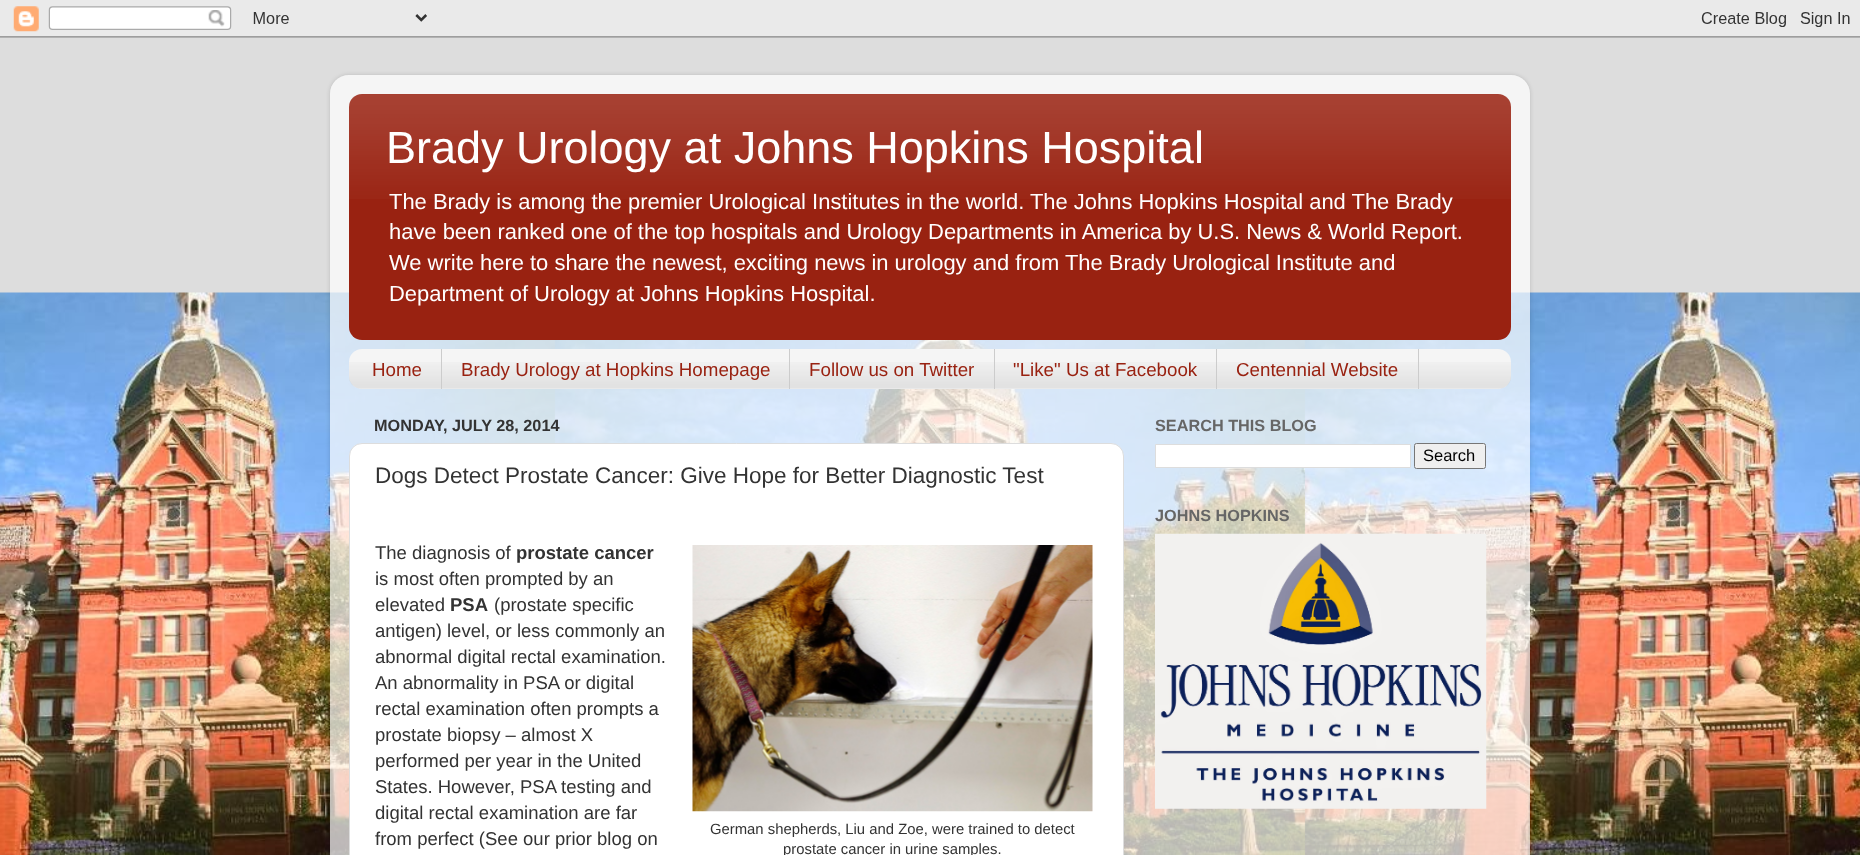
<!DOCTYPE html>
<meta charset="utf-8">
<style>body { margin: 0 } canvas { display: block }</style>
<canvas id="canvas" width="1860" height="855"></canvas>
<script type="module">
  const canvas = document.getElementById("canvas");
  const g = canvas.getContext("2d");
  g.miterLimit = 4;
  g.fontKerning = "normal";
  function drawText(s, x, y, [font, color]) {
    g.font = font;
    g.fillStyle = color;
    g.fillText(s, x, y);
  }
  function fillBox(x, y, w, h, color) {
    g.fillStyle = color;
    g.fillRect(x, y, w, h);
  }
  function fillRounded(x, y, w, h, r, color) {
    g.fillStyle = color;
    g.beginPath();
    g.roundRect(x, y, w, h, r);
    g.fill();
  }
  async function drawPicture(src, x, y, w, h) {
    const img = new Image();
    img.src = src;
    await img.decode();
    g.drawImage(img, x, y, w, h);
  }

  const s1 = ["45px Liberation Sans", "#FFFFFF"];
  const s2 = ["21.95px Liberation Sans", "#FFFFFF"];
  const s3 = ["18.75px Liberation Sans", "#992211"];
  const s4 = ["bold 16.25px Liberation Sans", "#333333"];
  const s5 = ["22.5px Liberation Sans", "#333333"];
  const s6 = ["18.5px Liberation Sans", "#333333"];
  const s7 = ["bold 18.5px Liberation Sans", "#333333"];
  const s8 = ["14.85px Liberation Sans", "#333333"];
  const s9 = ["bold 16.25px Liberation Sans", "#666666"];
  const s10 = ["16.5px Liberation Sans", "#000000"];

  fillBox(0, 0, 1860, 855, "#DDDDDD");
  await drawPicture("pic1.png", 0, 292, 1860, 563);
  await drawPicture("pic2.png", 0, 0, 1860, 38);
  g.save();
  g.beginPath();
  g.moveTo(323, 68);
  g.lineTo(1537, 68);
  g.lineTo(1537, 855);
  g.lineTo(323, 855);
  g.closePath();
  g.moveTo(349, 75);
  g.lineTo(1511, 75);
  g.bezierCurveTo(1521.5, 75, 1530, 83.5, 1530, 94);
  g.lineTo(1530, 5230);
  g.bezierCurveTo(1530, 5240.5, 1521.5, 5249, 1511, 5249);
  g.lineTo(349, 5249);
  g.bezierCurveTo(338.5, 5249, 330, 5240.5, 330, 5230);
  g.lineTo(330, 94);
  g.bezierCurveTo(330, 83.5, 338.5, 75, 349, 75);
  g.closePath();
  g.clip("evenodd");
  g.fillStyle = "rgba(0, 0, 0, 0.15)";
  g.filter = "blur(2px)";
  g.beginPath();
  g.roundRect(330, 75, 1200, 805, 19);
  g.fill();
  g.filter = "none";
  g.restore();
  await drawPicture("pic3.png", 330, 75, 1200, 780);
  fillRounded(349, 94, 1162, 246, 13, "#992211");
  await drawPicture("pic4.png", 349, 94, 1162, 105);
  drawText("Brady Urology at Johns Hopkins Hospital", 386, 163, s1);
  drawText("The Brady is among the premier Urological Institutes in the world. The Johns Hopkins Hospital and The Brady", 389, 209, s2);
  drawText("have been ranked one of the top hospitals and Urology Departments in America by U.S. News & World Report.", 389, 239, s2);
  drawText("We write here to share the newest, exciting news in urology and from The Brady Urological Institute and", 389, 270, s2);
  drawText("Department of Urology at Johns Hopkins Hospital.", 389, 301, s2);
  fillRounded(349, 349, 1162, 40, 13, "#F5F5F5");
  await drawPicture("pic5.png", 349, 362, 1162, 27);
  fillBox(441, 349, 1, 40, "#CCCCCC");
  drawText("Home", 372, 376, s3);
  fillBox(789, 349, 1, 40, "#CCCCCC");
  drawText("Brady Urology at Hopkins Homepage", 461, 376, s3);
  fillBox(994, 349, 1, 40, "#CCCCCC");
  drawText("Follow us on Twitter", 809, 376, s3);
  fillBox(1216, 349, 1, 40, "#CCCCCC");
  drawText("\"Like\" Us at Facebook", 1013, 376, s3);
  fillBox(1418, 349, 1, 40, "#CCCCCC");
  drawText("Centennial Website", 1236, 376, s3);
  drawText("MONDAY, JULY 28, 2014", 374, 431, s4);
  g.fillStyle = "#FFFFFF";
  g.beginPath();
  g.roundRect(349.5, 443.5, 774, 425, 12.5);
  g.fill();
  g.strokeStyle = "#DDDDDD";
  g.stroke();
  drawText("Dogs Detect Prostate Cancer: Give Hope for Better Diagnostic Test", 375, 483, s5);
  drawText("The diagnosis of", 375, 559, s6);
  drawText("prostate cancer", 516, 559, s7);
  drawText("is most often prompted by an", 375, 585, s6);
  drawText("elevated", 375, 611, s6);
  drawText("PSA", 450, 611, s7);
  drawText("(prostate specific", 494, 611, s6);
  drawText("antigen) level, or less commonly an", 375, 637, s6);
  drawText("abnormal digital rectal examination.", 375, 663, s6);
  drawText("An abnormality in PSA or digital", 375, 689, s6);
  drawText("rectal examination often prompts a", 375, 715, s6);
  drawText("prostate biopsy – almost X", 375, 741, s6);
  drawText("performed per year in the United", 375, 767, s6);
  drawText("States. However, PSA testing and", 375, 793, s6);
  drawText("digital rectal examination are far", 375, 819, s6);
  drawText("from perfect (See our prior blog on", 375, 845, s6);
  await drawPicture("pic6.png", 692, 545, 401, 267);
  drawText("German shepherds, Liu and Zoe, were trained to detect", 710, 834, s8);
  drawText("prostate cancer in urine samples.", 783, 854, s8);
  drawText("SEARCH THIS BLOG", 1155, 431, s9);
  g.fillStyle = "#FFFFFF";
  g.beginPath();
  g.rect(1155.5, 444.5, 255, 23);
  g.fill();
  g.stroke();
  g.fillStyle = "#EFEFEF";
  g.beginPath();
  g.roundRect(1414.5, 443.5, 71, 25, 2);
  g.fill();
  g.strokeStyle = "#767676";
  g.stroke();
  drawText("Search", 1423, 461, s10);
  drawText("JOHNS HOPKINS", 1155, 521, s9);
  await drawPicture("pic7.png", 1155, 533, 332, 276);
</script>
